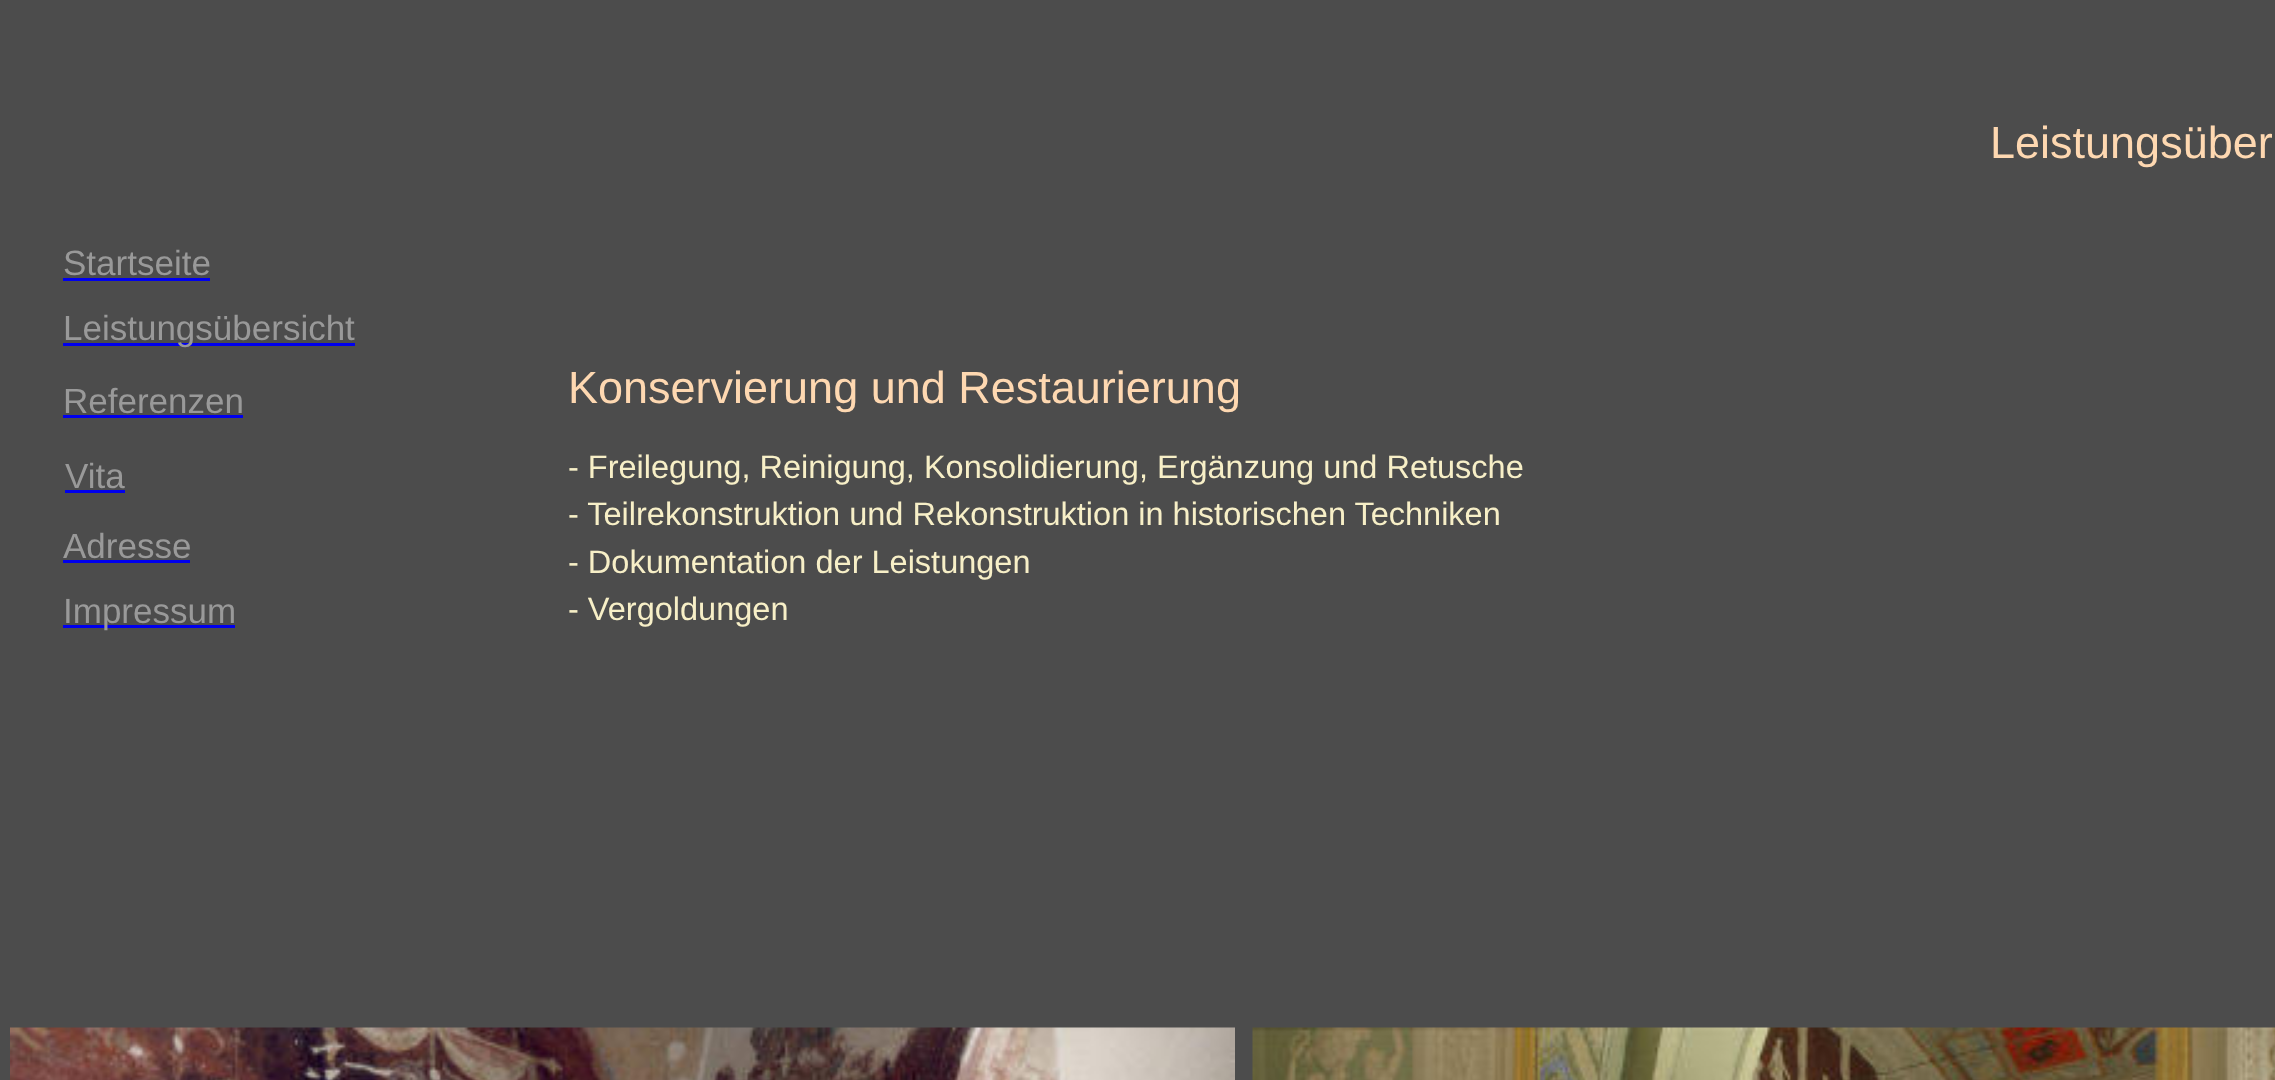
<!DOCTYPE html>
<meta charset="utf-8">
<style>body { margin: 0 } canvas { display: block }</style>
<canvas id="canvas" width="2275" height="1080"></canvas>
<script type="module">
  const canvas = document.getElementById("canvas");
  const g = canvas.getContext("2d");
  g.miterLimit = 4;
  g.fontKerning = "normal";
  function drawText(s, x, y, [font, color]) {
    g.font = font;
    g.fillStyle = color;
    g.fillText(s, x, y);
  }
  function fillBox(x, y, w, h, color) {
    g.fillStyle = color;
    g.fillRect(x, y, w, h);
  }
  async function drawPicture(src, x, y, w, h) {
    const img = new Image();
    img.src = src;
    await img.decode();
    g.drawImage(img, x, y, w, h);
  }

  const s1 = ["45px Liberation Sans", "#FED8B1"];
  const s2 = ["35px Liberation Sans", "#999999"];
  const s3 = ["32.5px Liberation Sans", "#F7EFC7"];

  fillBox(0, 0, 2275, 1080, "#4C4C4C");
  drawText("Leistungsüber", 1990, 158, s1);
  drawText("Startseite", 63, 275, s2);
  fillBox(63, 278, 147, 3, "#0000EE");
  fillBox(63, 343, 292, 3, "#0000EE");
  drawText("Leistungsübersicht", 63, 340, s2);
  drawText("Referenzen", 63, 413, s2);
  fillBox(63, 415, 180, 3, "#0000EE");
  drawText("Konservierung und Restaurierung", 568, 403, s1);
  drawText("- Freilegung, Reinigung, Konsolidierung, Ergänzung und Retusche", 568, 478, s3);
  drawText("- Teilrekonstruktion und Rekonstruktion in historischen Techniken", 568, 525, s3);
  drawText("- Dokumentation der Leistungen", 568, 573, s3);
  drawText("- Vergoldungen", 568, 620, s3);
  drawText("Vita", 65, 488, s2);
  fillBox(65, 490, 60, 3, "#0000EE");
  drawText("Adresse", 63, 558, s2);
  fillBox(63, 560, 127, 3, "#0000EE");
  fillBox(63, 625, 172, 3, "#0000EE");
  drawText("Impressum", 63, 623, s2);
  await drawPicture("pic1.png", 10, 1027, 1225, 53);
  await drawPicture("pic2.png", 1252, 1027, 1023, 53);
</script>
